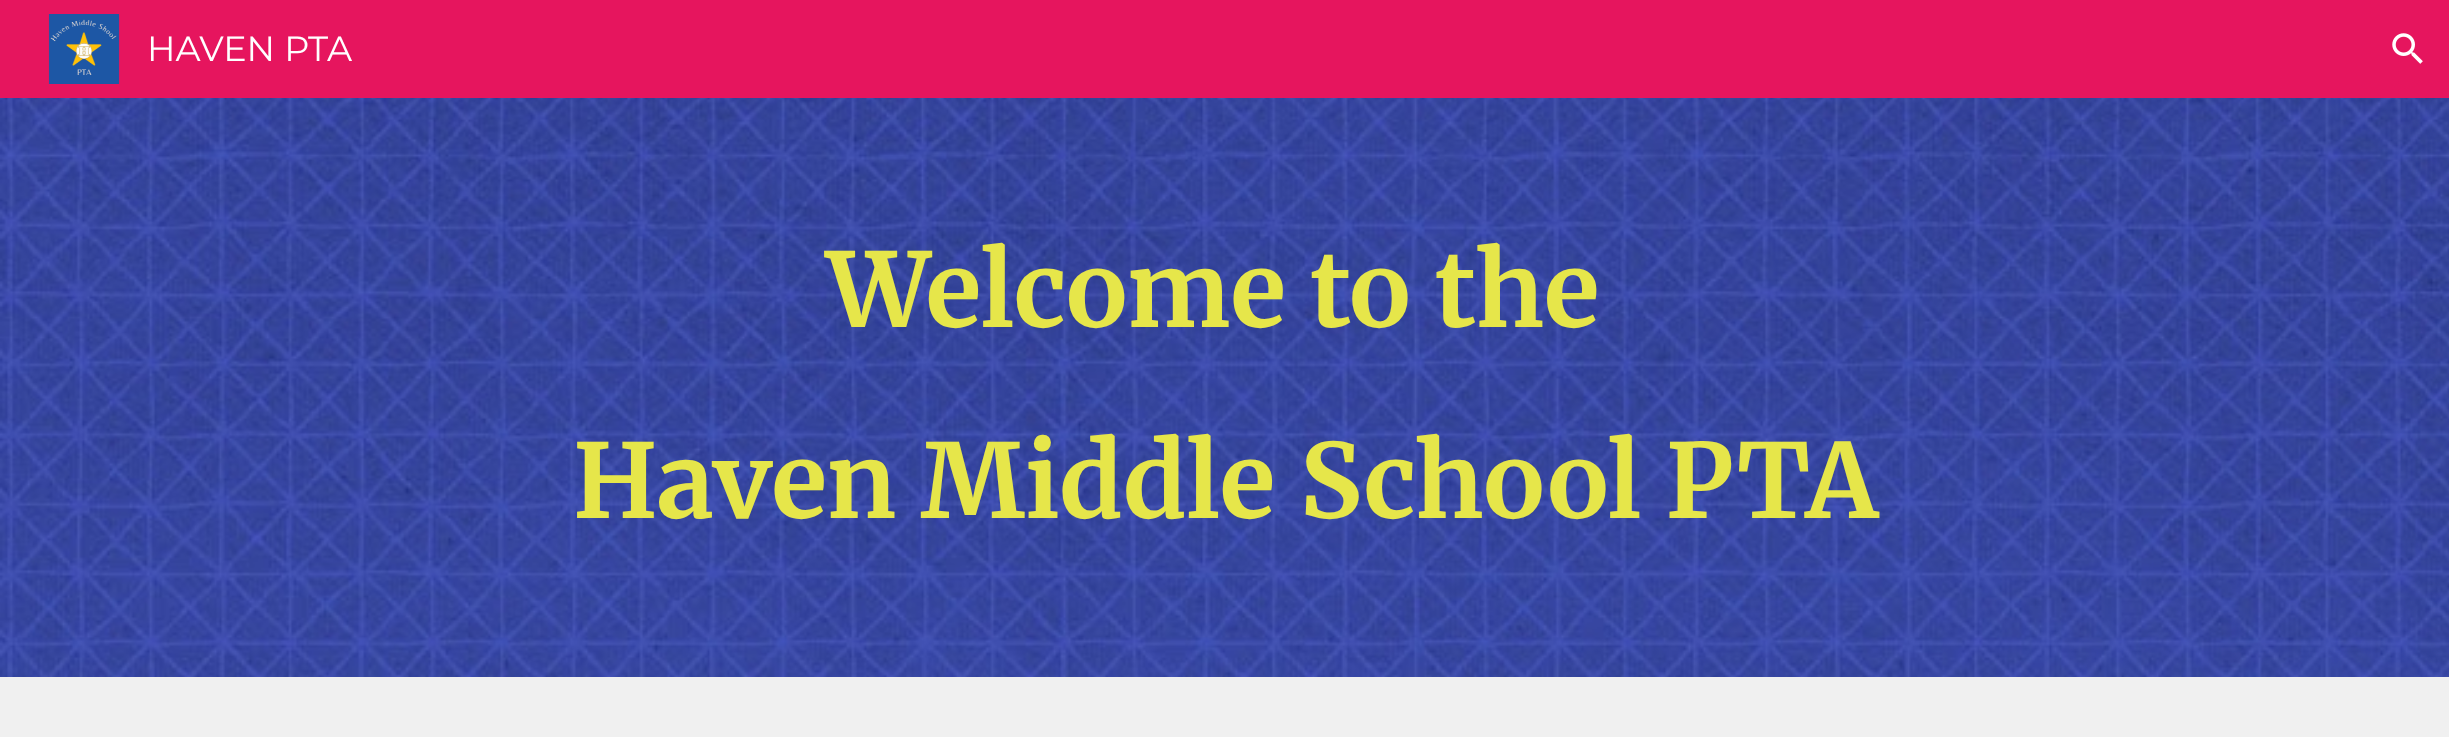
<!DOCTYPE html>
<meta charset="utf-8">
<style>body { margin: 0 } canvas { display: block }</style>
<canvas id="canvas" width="2449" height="737"></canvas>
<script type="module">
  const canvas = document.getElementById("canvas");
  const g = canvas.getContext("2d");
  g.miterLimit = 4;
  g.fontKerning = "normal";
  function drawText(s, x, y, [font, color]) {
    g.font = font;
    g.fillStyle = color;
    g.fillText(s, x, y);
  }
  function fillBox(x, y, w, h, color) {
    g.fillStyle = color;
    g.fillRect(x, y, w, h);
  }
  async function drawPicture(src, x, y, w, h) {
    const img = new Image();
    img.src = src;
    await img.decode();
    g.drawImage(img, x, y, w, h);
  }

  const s1 = ["35px Montserrat", "#FFFFFF"];
  const s2 = ["bold 102.7px Merriweather", "#E6E64A"];

  fillBox(0, 0, 2449, 737, "#FFFFFF");
  fillBox(0, 0, 2449, 98, "#E6155E");
  await drawPicture("pic1.png", 48, 14, 72, 70);
  drawText("HAVEN PTA", 147, 61, s1);
  await drawPicture("pic2.png", 2392, 33, 31, 31);
  await drawPicture("pic3.png", 0, 98, 2449, 579);
  drawText("Welcome to the", 826, 327, s2);
  drawText("Haven Middle School PTA", 573, 518, s2);
  fillBox(0, 677, 2449, 60, "#F0F0F0");
</script>
